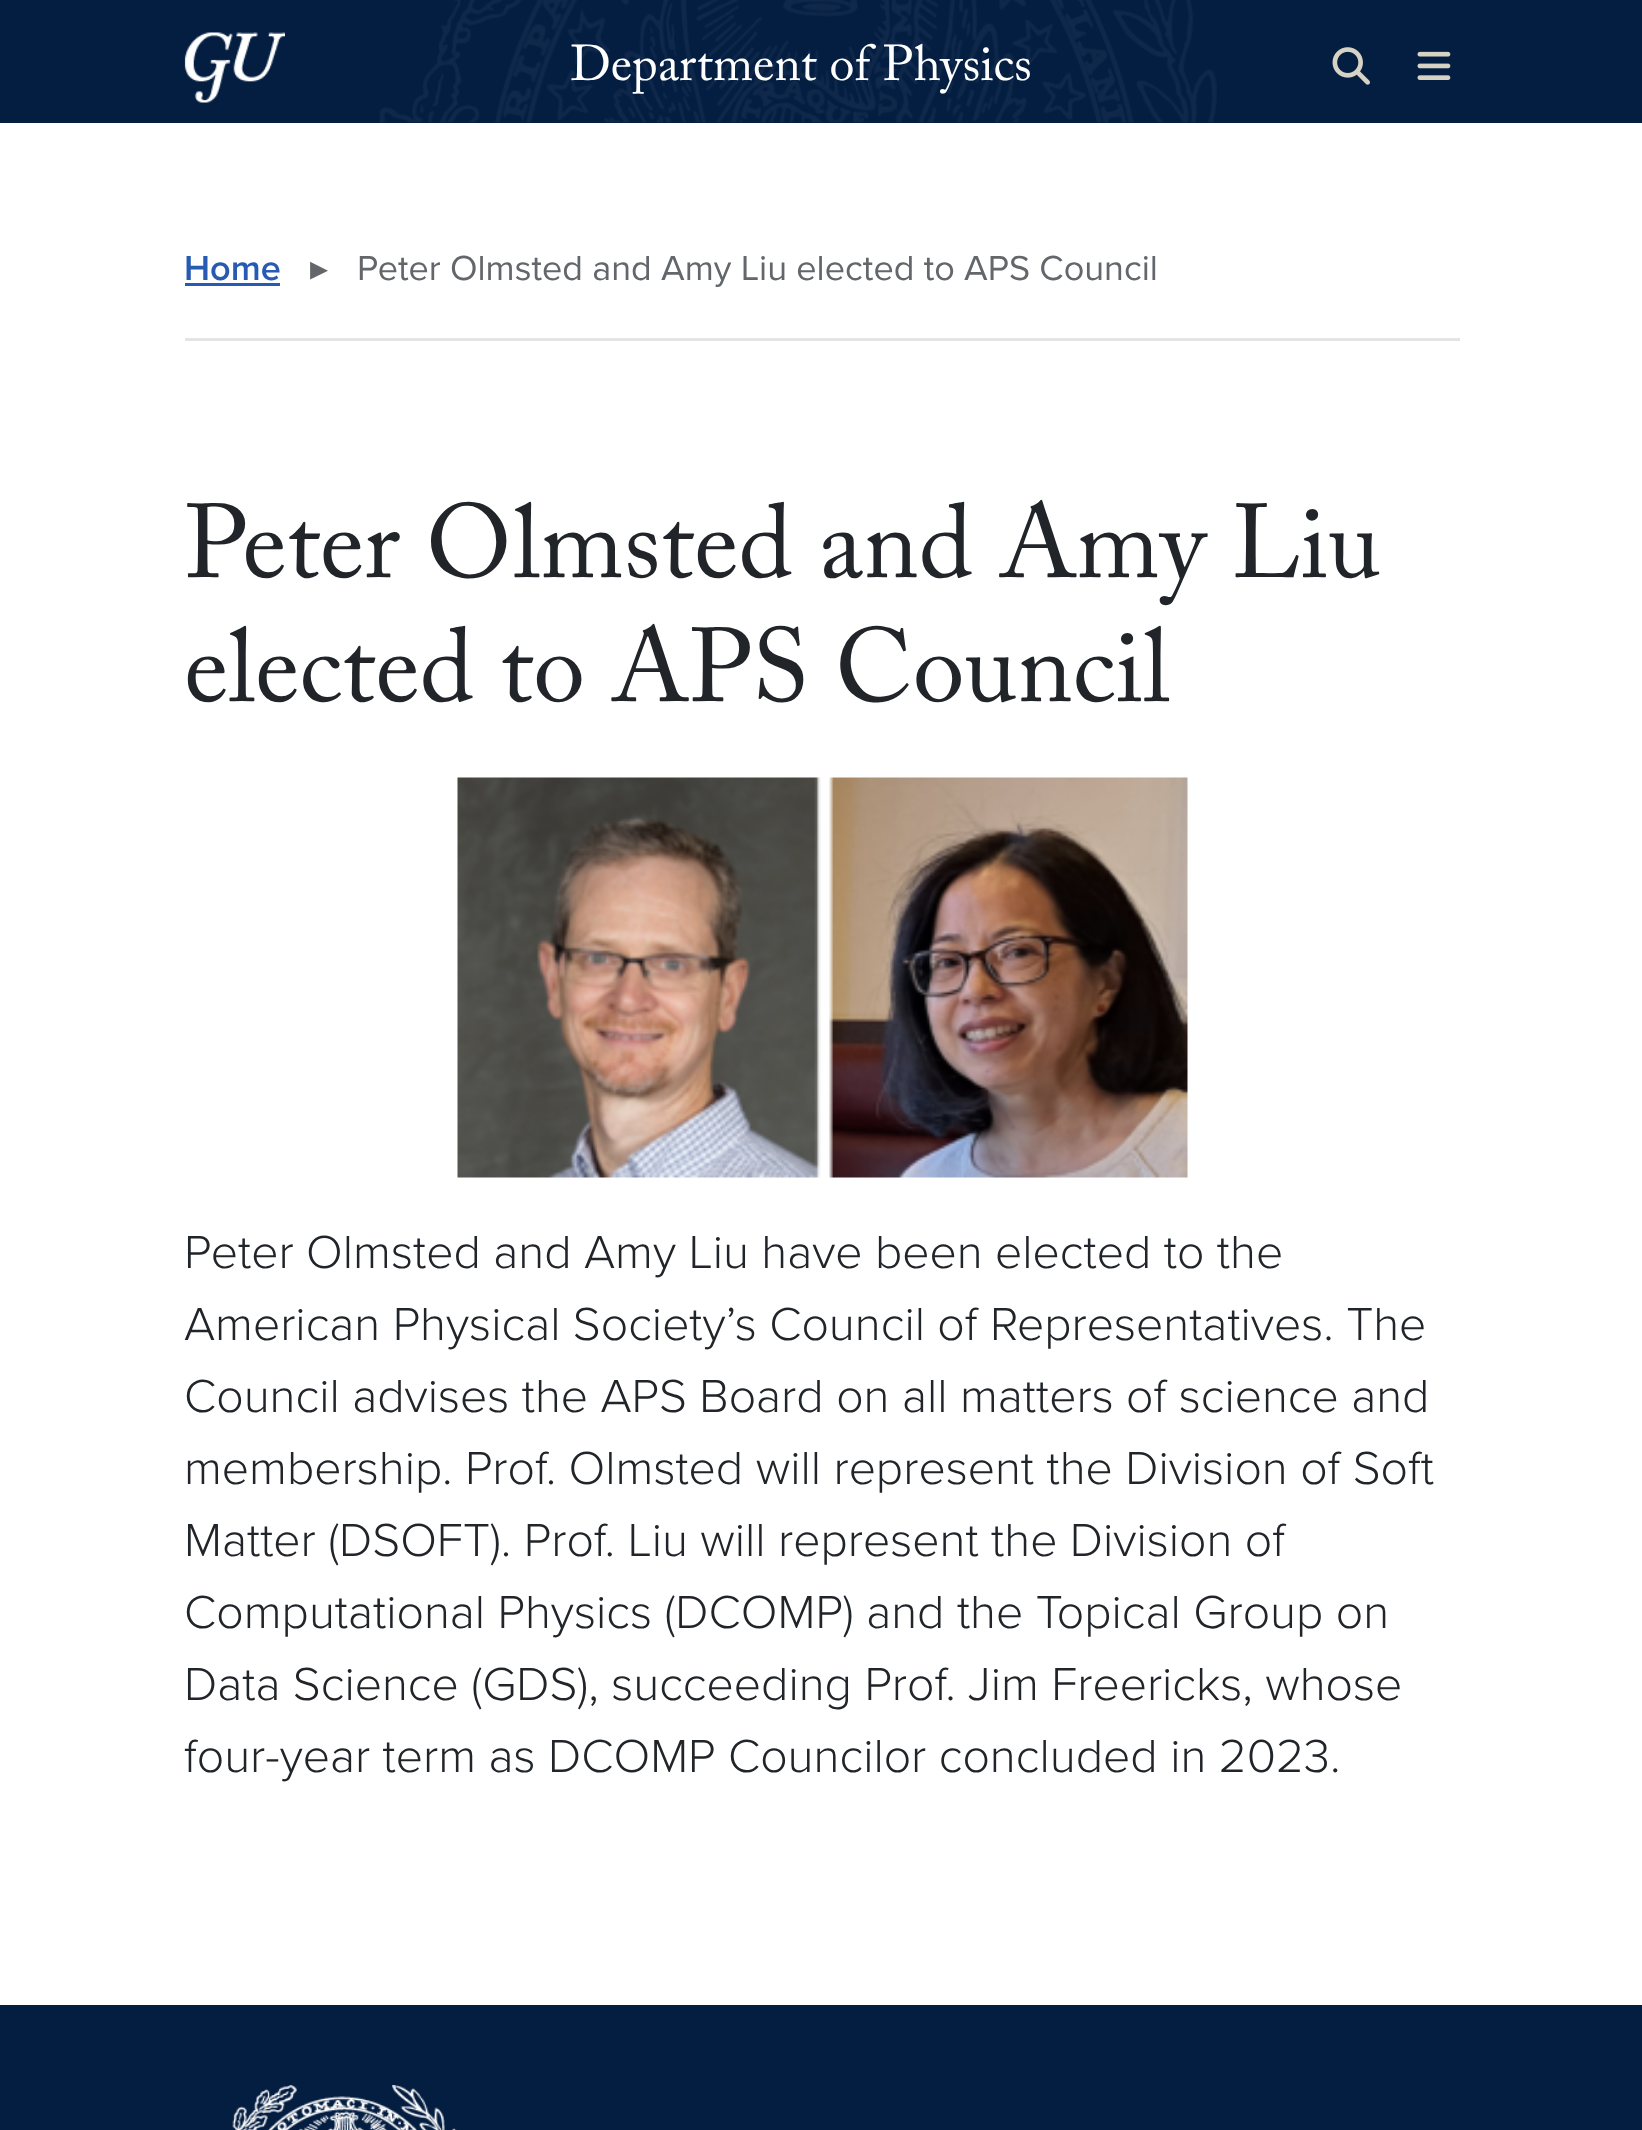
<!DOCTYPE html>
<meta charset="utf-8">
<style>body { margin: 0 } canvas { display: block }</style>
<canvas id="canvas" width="1642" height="2130"></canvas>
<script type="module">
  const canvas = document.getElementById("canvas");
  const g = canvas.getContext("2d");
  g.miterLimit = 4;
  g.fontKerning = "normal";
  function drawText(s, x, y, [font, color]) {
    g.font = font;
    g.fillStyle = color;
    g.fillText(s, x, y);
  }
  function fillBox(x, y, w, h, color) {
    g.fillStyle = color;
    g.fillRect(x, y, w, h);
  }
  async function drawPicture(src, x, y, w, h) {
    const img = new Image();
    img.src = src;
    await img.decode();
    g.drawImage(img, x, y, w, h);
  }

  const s1 = ["50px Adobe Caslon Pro", "#FFFFFF"];
  const s2 = ["600 36px Proxima Nova", "#265AB3"];
  const s3 = ["36px DejaVu Sans", "#63666A"];
  const s4 = ["36px Proxima Nova", "#63666A"];
  const s5 = ["104px Adobe Caslon Pro", "#212529"];
  const s6 = ["300 48px Proxima Nova", "#212529"];

  fillBox(0, 0, 1642, 2130, "#FFFFFF");
  fillBox(0, 0, 1642, 123, "#041E42");
  await drawPicture("pic1.png", 379, 0, 838, 123);
  await drawPicture("pic2.png", 184, 32, 101, 71);
  drawText("Department of Physics", 570, 80, s1);
  await drawPicture("pic3.png", 1332, 47, 38, 38);
  await drawPicture("pic4.png", 1417, 51, 34, 29);
  fillBox(185, 338, 1275, 3, "#E4E4E4");
  drawText("Home", 184, 280, s2);
  fillBox(185, 283, 95, 3, "#265AB3");
  drawText("▸", 310, 280, s3);
  drawText("Peter Olmsted and Amy Liu elected to APS Council", 357, 280, s4);
  drawText("Peter Olmsted and Amy Liu", 184, 577, s5);
  drawText("elected to APS Council", 184, 701, s5);
  await drawPicture("pic5.png", 457, 777, 731, 401);
  drawText("Peter Olmsted and Amy Liu have been elected to the", 184, 1268, s6);
  drawText("American Physical Society’s Council of Representatives. The", 184, 1340, s6);
  drawText("Council advises the APS Board on all matters of science and", 184, 1412, s6);
  drawText("membership. Prof. Olmsted will represent the Division of Soft", 184, 1484, s6);
  drawText("Matter (DSOFT). Prof. Liu will represent the Division of", 184, 1556, s6);
  drawText("Computational Physics (DCOMP) and the Topical Group on", 184, 1628, s6);
  drawText("Data Science (GDS), succeeding Prof. Jim Freericks, whose", 184, 1700, s6);
  drawText("four-year term as DCOMP Councilor concluded in 2023.", 184, 1772, s6);
  fillBox(0, 2005, 1642, 125, "#041E42");
  await drawPicture("pic6.png", 232, 2085, 225, 45);
</script>
